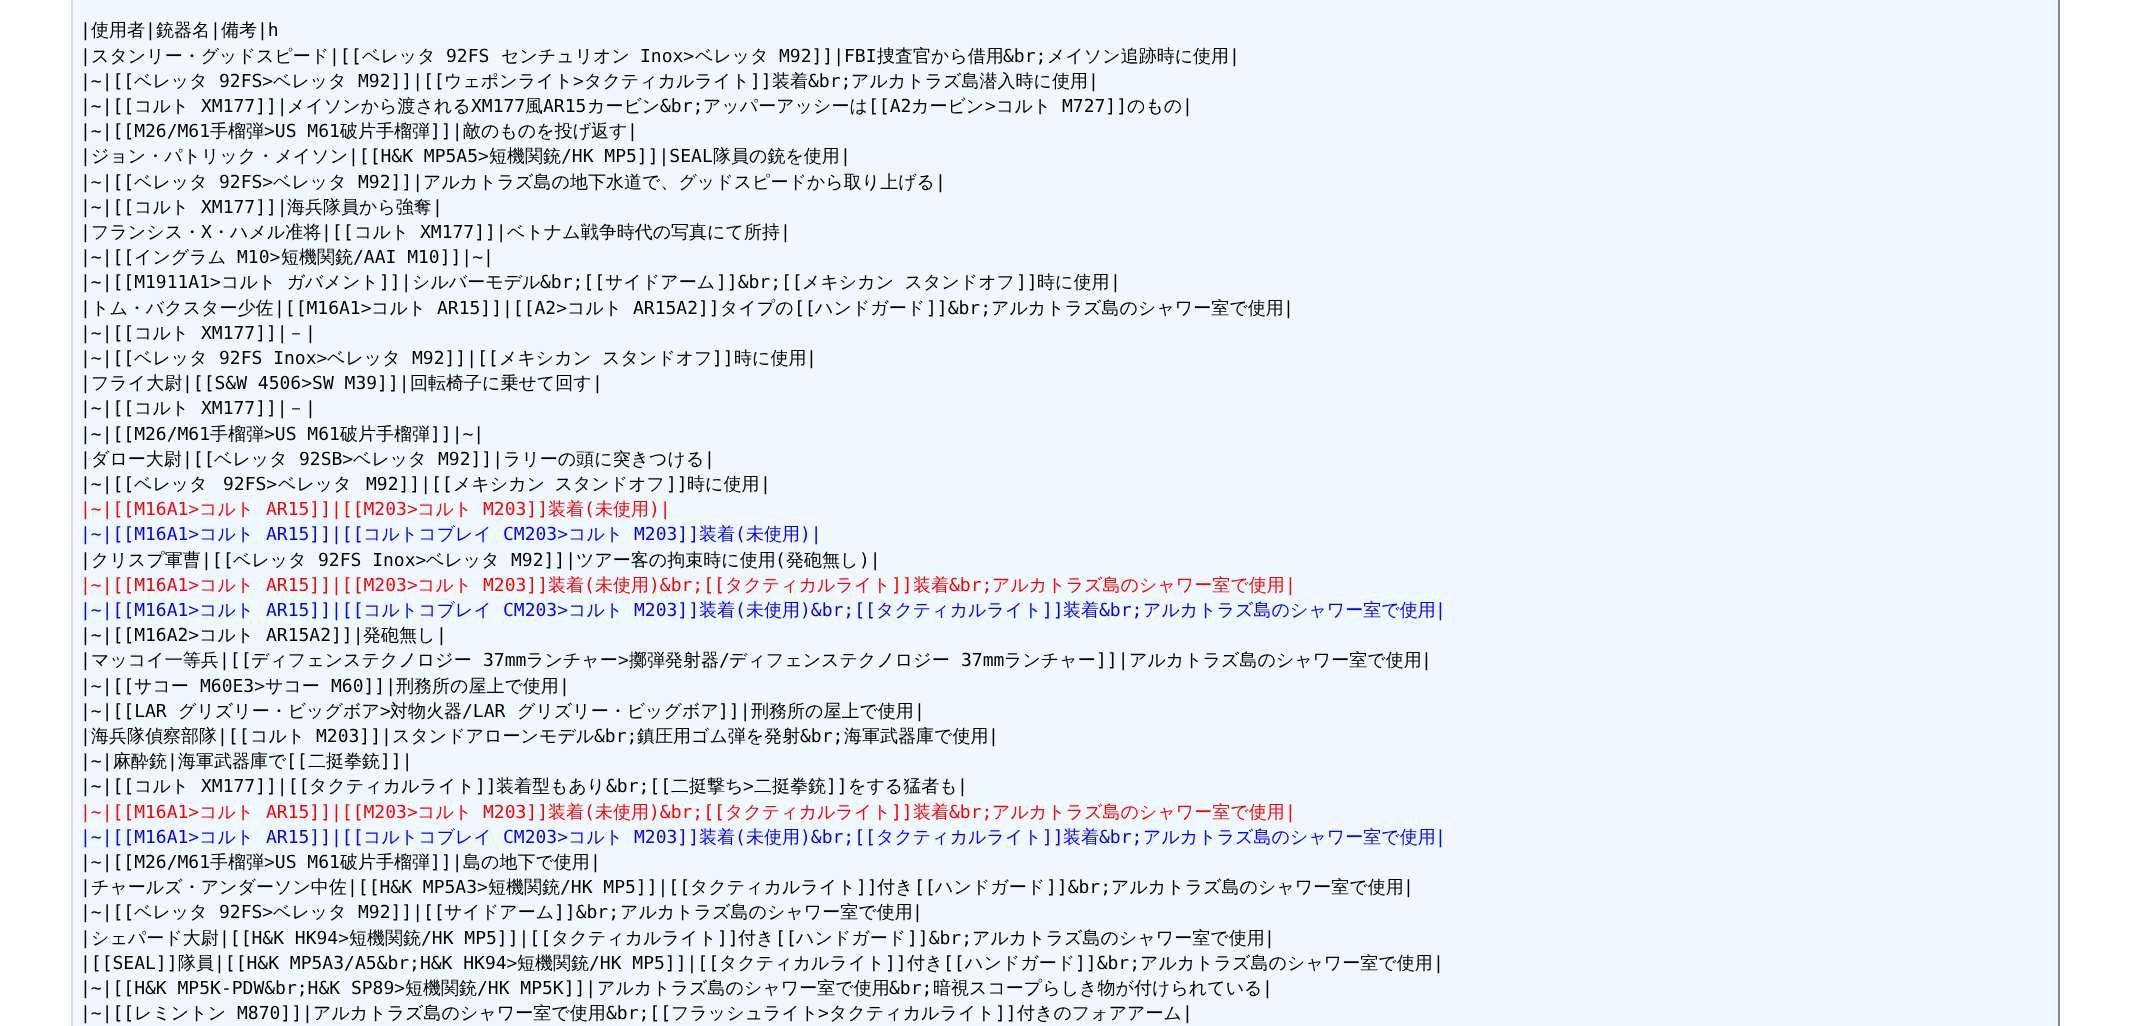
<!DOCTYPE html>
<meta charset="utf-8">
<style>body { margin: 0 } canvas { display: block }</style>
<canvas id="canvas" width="2139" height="1026"></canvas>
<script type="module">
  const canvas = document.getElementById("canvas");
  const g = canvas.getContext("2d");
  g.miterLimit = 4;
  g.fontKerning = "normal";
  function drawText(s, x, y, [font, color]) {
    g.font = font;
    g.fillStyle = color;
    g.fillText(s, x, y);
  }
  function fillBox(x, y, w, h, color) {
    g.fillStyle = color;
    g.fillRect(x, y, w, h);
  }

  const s1 = ["18px DejaVu Sans Mono", "#000000"];
  const s2 = ["500 18px WenQuanYi Zen Hei", "#000000"];
  const s3 = ["18px DejaVu Sans Mono", "#FF0000"];
  const s4 = ["500 18px WenQuanYi Zen Hei", "#FF0000"];
  const s5 = ["18px DejaVu Sans Mono", "#0000FF"];
  const s6 = ["500 18px WenQuanYi Zen Hei", "#0000FF"];

  fillBox(0, 0, 2139, 1026, "#FFFFFF");
  fillBox(73, 0, 1985, 1026, "#F0F8FF");
  fillBox(2058, 0, 2, 1026, "#888899");
  fillBox(71, 0, 2, 1026, "#DDDDEE");
  drawText("|", 80, 36, s1);
  drawText("使用者", 91, 36, s2);
  drawText("|", 145, 36, s1);
  drawText("銃器名", 156, 36, s2);
  drawText("|", 210, 36, s1);
  drawText("備考", 221, 36, s2);
  drawText("|h", 257, 36, s1);
  drawText("|", 80, 62, s1);
  drawText("スタンリー・グッドスピード", 91, 62, s2);
  drawText("|[[", 329, 62, s1);
  drawText("ベレッタ", 362, 62, s2);
  drawText("92FS", 446, 62, s1);
  drawText("センチュリオン", 501, 62, s2);
  drawText("Inox>", 640, 62, s1);
  drawText("ベレッタ", 695, 62, s2);
  drawText("M92]]|FBI", 779, 62, s1);
  drawText("捜査官から借用", 877, 62, s2);
  drawText("&br;", 1003, 62, s1);
  drawText("メイソン追跡時に使用", 1047, 62, s2);
  drawText("|", 1229, 62, s1);
  drawText("|~|[[", 80, 87, s1);
  drawText("ベレッタ", 134, 87, s2);
  drawText("92FS>", 219, 87, s1);
  drawText("ベレッタ", 273, 87, s2);
  drawText("M92]]|[[", 358, 87, s1);
  drawText("ウェポンライト", 444, 87, s2);
  drawText(">", 573, 87, s1);
  drawText("タクティカルライト", 584, 87, s2);
  drawText("]]", 750, 87, s1);
  drawText("装着", 772, 87, s2);
  drawText("&br;", 808, 87, s1);
  drawText("アルカトラズ島潜入時に使用", 851, 87, s2);
  drawText("|", 1088, 87, s1);
  drawText("|~|[[", 80, 112, s1);
  drawText("コルト", 134, 112, s2);
  drawText("XM177]]|", 201, 112, s1);
  drawText("メイソンから渡される", 287, 112, s2);
  drawText("XM177", 471, 112, s1);
  drawText("風", 525, 112, s2);
  drawText("AR15", 543, 112, s1);
  drawText("カービン", 587, 112, s2);
  drawText("&br;", 660, 112, s1);
  drawText("アッパーアッシーは", 703, 112, s2);
  drawText("[[A2", 868, 112, s1);
  drawText("カービン", 911, 112, s2);
  drawText(">", 985, 112, s1);
  drawText("コルト", 996, 112, s2);
  drawText("M727]]", 1062, 112, s1);
  drawText("のもの", 1127, 112, s2);
  drawText("|", 1182, 112, s1);
  drawText("|~|[[M26/M61", 80, 137, s1);
  drawText("手榴弾", 210, 137, s2);
  drawText(">US M61", 264, 137, s1);
  drawText("破片手榴弾", 340, 137, s2);
  drawText("]]|", 430, 137, s1);
  drawText("敵のものを投げ返す", 463, 137, s2);
  drawText("|", 627, 137, s1);
  drawText("|", 80, 162, s1);
  drawText("ジョン・パトリック・メイソン", 91, 162, s2);
  drawText("|[[H&K MP5A5>", 348, 162, s1);
  drawText("短機関銃", 489, 162, s2);
  drawText("/HK MP5]]|SEAL", 561, 162, s1);
  drawText("隊員の銃を使用", 713, 162, s2);
  drawText("|", 840, 162, s1);
  drawText("|~|[[", 80, 188, s1);
  drawText("ベレッタ", 134, 188, s2);
  drawText("92FS>", 219, 188, s1);
  drawText("ベレッタ", 273, 188, s2);
  drawText("M92]]|", 358, 188, s1);
  drawText("アルカトラズ島の地下水道で、グッドスピードから取り上げる", 423, 188, s2);
  drawText("|", 935, 188, s1);
  drawText("|~|[[", 80, 213, s1);
  drawText("コルト", 134, 213, s2);
  drawText("XM177]]|", 201, 213, s1);
  drawText("海兵隊員から強奪", 287, 213, s2);
  drawText("|", 432, 213, s1);
  drawText("|", 80, 238, s1);
  drawText("フランシス・", 91, 238, s2);
  drawText("X", 201, 238, s1);
  drawText("・ハメル准将", 212, 238, s2);
  drawText("|[[", 321, 238, s1);
  drawText("コルト", 354, 238, s2);
  drawText("XM177]]|", 420, 238, s1);
  drawText("ベトナム戦争時代の写真にて所持", 507, 238, s2);
  drawText("|", 780, 238, s1);
  drawText("|~|[[", 80, 263, s1);
  drawText("イングラム", 134, 263, s2);
  drawText("M10>", 237, 263, s1);
  drawText("短機関銃", 281, 263, s2);
  drawText("/AAI M10]]|~|", 353, 263, s1);
  drawText("|~|[[M1911A1>", 80, 288, s1);
  g.wordSpacing = "5px";
  drawText("コルト ガバメント", 221, 288, s2);
  g.wordSpacing = "0px";
  drawText("]]|", 379, 288, s1);
  drawText("シルバーモデル", 412, 288, s2);
  drawText("&br;[[", 540, 288, s1);
  drawText("サイドアーム", 605, 288, s2);
  drawText("]]&br;[[", 716, 288, s1);
  g.wordSpacing = "5px";
  drawText("メキシカン スタンドオフ", 802, 288, s2);
  g.wordSpacing = "0px";
  drawText("]]", 1016, 288, s1);
  drawText("時に使用", 1037, 288, s2);
  drawText("|", 1110, 288, s1);
  drawText("|", 80, 314, s1);
  drawText("トム・バクスター少佐", 91, 314, s2);
  drawText("|[[M16A1>", 274, 314, s1);
  drawText("コルト", 371, 314, s2);
  drawText("AR15]]|[[A2>", 437, 314, s1);
  drawText("コルト", 567, 314, s2);
  drawText("AR15A2]]", 633, 314, s1);
  drawText("タイプの", 720, 314, s2);
  drawText("[[", 794, 314, s1);
  drawText("ハンドガード", 815, 314, s2);
  drawText("]]&br;", 926, 314, s1);
  drawText("アルカトラズ島のシャワー室で使用", 991, 314, s2);
  drawText("|", 1283, 314, s1);
  drawText("|~|[[", 80, 339, s1);
  drawText("コルト", 134, 339, s2);
  drawText("XM177]]|", 201, 339, s1);
  drawText("－", 287, 339, s2);
  drawText("|", 305, 339, s1);
  drawText("|~|[[", 80, 364, s1);
  drawText("ベレッタ", 134, 364, s2);
  drawText("92FS Inox>", 219, 364, s1);
  drawText("ベレッタ", 327, 364, s2);
  drawText("M92]]|[[", 412, 364, s1);
  drawText("メキシカン", 499, 364, s2);
  drawText("スタンドオフ", 602, 364, s2);
  drawText("]]", 712, 364, s1);
  drawText("時に使用", 734, 364, s2);
  drawText("|", 806, 364, s1);
  drawText("|", 80, 389, s1);
  drawText("フライ大尉", 91, 389, s2);
  drawText("|[[S&W 4506>SW M39]]|", 182, 389, s1);
  drawText("回転椅子に乗せて回す", 410, 389, s2);
  drawText("|", 592, 389, s1);
  drawText("|~|[[", 80, 414, s1);
  drawText("コルト", 134, 414, s2);
  drawText("XM177]]|", 201, 414, s1);
  drawText("－", 287, 414, s2);
  drawText("|", 305, 414, s1);
  drawText("|~|[[M26/M61", 80, 440, s1);
  drawText("手榴弾", 210, 440, s2);
  drawText(">US M61", 264, 440, s1);
  drawText("破片手榴弾", 340, 440, s2);
  drawText("]]|~|", 430, 440, s1);
  drawText("|", 80, 465, s1);
  drawText("ダロー大尉", 91, 465, s2);
  drawText("|[[", 182, 465, s1);
  drawText("ベレッタ", 214, 465, s2);
  drawText("92SB>", 299, 465, s1);
  drawText("ベレッタ", 353, 465, s2);
  drawText("M92]]|", 438, 465, s1);
  drawText("ラリーの頭に突きつける", 503, 465, s2);
  drawText("|", 704, 465, s1);
  drawText("|~|[[", 80, 490, s1);
  drawText("ベレッタ", 134, 490, s2);
  drawText("92FS>", 223, 490, s1);
  drawText("ベレッタ", 278, 490, s2);
  drawText("M92]]|[[", 366, 490, s1);
  g.wordSpacing = "4px";
  drawText("メキシカン スタンドオフ", 453, 490, s2);
  g.wordSpacing = "0px";
  drawText("]]", 666, 490, s1);
  drawText("時に使用", 687, 490, s2);
  drawText("|", 760, 490, s1);
  drawText("|~|[[M16A1>", 80, 515, s3);
  drawText("コルト", 199, 515, s4);
  drawText("AR15]]|[[M203>", 266, 515, s3);
  drawText("コルト", 417, 515, s4);
  drawText("M203]]", 483, 515, s3);
  drawText("装着", 548, 515, s4);
  drawText("(", 584, 515, s3);
  drawText("未使用", 595, 515, s4);
  drawText(")|", 649, 515, s3);
  drawText("|~|[[M16A1>", 80, 540, s5);
  drawText("コルト", 199, 540, s6);
  drawText("AR15]]|[[", 266, 540, s5);
  drawText("コルトコブレイ", 363, 540, s6);
  drawText("CM203>", 503, 540, s5);
  drawText("コルト", 568, 540, s6);
  drawText("M203]]", 634, 540, s5);
  drawText("装着", 699, 540, s6);
  drawText("(", 735, 540, s5);
  drawText("未使用", 746, 540, s6);
  drawText(")|", 800, 540, s5);
  drawText("|", 80, 566, s1);
  drawText("クリスプ軍曹", 91, 566, s2);
  drawText("|[[", 201, 566, s1);
  drawText("ベレッタ", 233, 566, s2);
  drawText("92FS Inox>", 318, 566, s1);
  drawText("ベレッタ", 426, 566, s2);
  drawText("M92]]|", 511, 566, s1);
  drawText("ツアー客の拘束時に使用", 576, 566, s2);
  drawText("(", 775, 566, s1);
  drawText("発砲無し", 786, 566, s2);
  drawText(")|", 859, 566, s1);
  drawText("|~|[[M16A1>", 80, 591, s3);
  drawText("コルト", 199, 591, s4);
  drawText("AR15]]|[[M203>", 266, 591, s3);
  drawText("コルト", 417, 591, s4);
  drawText("M203]]", 483, 591, s3);
  drawText("装着", 548, 591, s4);
  drawText("(", 584, 591, s3);
  drawText("未使用", 595, 591, s4);
  drawText(")&br;[[", 649, 591, s3);
  drawText("タクティカルライト", 725, 591, s4);
  drawText("]]", 891, 591, s3);
  drawText("装着", 913, 591, s4);
  drawText("&br;", 949, 591, s3);
  drawText("アルカトラズ島のシャワー室で使用", 992, 591, s4);
  drawText("|", 1285, 591, s3);
  drawText("|~|[[M16A1>", 80, 616, s5);
  drawText("コルト", 199, 616, s6);
  drawText("AR15]]|[[", 266, 616, s5);
  drawText("コルトコブレイ", 363, 616, s6);
  drawText("CM203>", 503, 616, s5);
  drawText("コルト", 568, 616, s6);
  drawText("M203]]", 634, 616, s5);
  drawText("装着", 699, 616, s6);
  drawText("(", 735, 616, s5);
  drawText("未使用", 746, 616, s6);
  drawText(")&br;[[", 800, 616, s5);
  drawText("タクティカルライト", 876, 616, s6);
  drawText("]]", 1042, 616, s5);
  drawText("装着", 1063, 616, s6);
  drawText("&br;", 1099, 616, s5);
  drawText("アルカトラズ島のシャワー室で使用", 1143, 616, s6);
  drawText("|", 1435, 616, s5);
  drawText("|~|[[M16A2>", 80, 641, s1);
  drawText("コルト", 199, 641, s2);
  drawText("AR15A2]]|", 266, 641, s1);
  drawText("発砲無し", 363, 641, s2);
  drawText("|", 436, 641, s1);
  drawText("|", 80, 666, s1);
  drawText("マッコイ一等兵", 91, 666, s2);
  drawText("|[[", 219, 666, s1);
  drawText("ディフェンステクノロジー", 251, 666, s2);
  drawText("37mm", 483, 666, s1);
  drawText("ランチャー", 526, 666, s2);
  drawText(">", 618, 666, s1);
  drawText("擲弾発射器", 629, 666, s2);
  drawText("/", 719, 666, s1);
  drawText("ディフェンステクノロジー", 729, 666, s2);
  drawText("37mm", 961, 666, s1);
  drawText("ランチャー", 1004, 666, s2);
  drawText("]]|", 1096, 666, s1);
  drawText("アルカトラズ島のシャワー室で使用", 1129, 666, s2);
  drawText("|", 1421, 666, s1);
  drawText("|~|[[", 80, 692, s1);
  drawText("サコー", 134, 692, s2);
  drawText("M60E3>", 200, 692, s1);
  drawText("サコー", 265, 692, s2);
  drawText("M60]]|", 331, 692, s1);
  drawText("刑務所の屋上で使用", 396, 692, s2);
  drawText("|", 559, 692, s1);
  drawText("|~|[[LAR", 80, 717, s1);
  drawText("グリズリー・ビッグボア", 178, 717, s2);
  drawText(">", 380, 717, s1);
  drawText("対物火器", 390, 717, s2);
  drawText("/LAR", 462, 717, s1);
  drawText("グリズリー・ビッグボア", 517, 717, s2);
  drawText("]]|", 718, 717, s1);
  drawText("刑務所の屋上で使用", 751, 717, s2);
  drawText("|", 914, 717, s1);
  drawText("|", 80, 742, s1);
  drawText("海兵隊偵察部隊", 91, 742, s2);
  drawText("|[[", 217, 742, s1);
  drawText("コルト", 250, 742, s2);
  drawText("M203]]|", 316, 742, s1);
  drawText("スタンドアローンモデル", 392, 742, s2);
  drawText("&br;", 594, 742, s1);
  drawText("鎮圧用ゴム弾を発射", 637, 742, s2);
  drawText("&br;", 800, 742, s1);
  drawText("海軍武器庫で使用", 844, 742, s2);
  drawText("|", 988, 742, s1);
  drawText("|~|", 80, 767, s1);
  drawText("麻酔銃", 113, 767, s2);
  drawText("|", 167, 767, s1);
  drawText("海軍武器庫で", 178, 767, s2);
  drawText("[[", 286, 767, s1);
  drawText("二挺拳銃", 308, 767, s2);
  drawText("]]|", 380, 767, s1);
  drawText("|~|[[", 80, 792, s1);
  drawText("コルト", 134, 792, s2);
  drawText("XM177]]|[[", 201, 792, s1);
  drawText("タクティカルライト", 309, 792, s2);
  drawText("]]", 475, 792, s1);
  drawText("装着型もあり", 496, 792, s2);
  drawText("&br;[[", 606, 792, s1);
  drawText("二挺撃ち", 671, 792, s2);
  drawText(">", 743, 792, s1);
  drawText("二挺拳銃", 754, 792, s2);
  drawText("]]", 826, 792, s1);
  drawText("をする猛者も", 848, 792, s2);
  drawText("|", 957, 792, s1);
  drawText("|~|[[M16A1>", 80, 818, s3);
  drawText("コルト", 199, 818, s4);
  drawText("AR15]]|[[M203>", 266, 818, s3);
  drawText("コルト", 417, 818, s4);
  drawText("M203]]", 483, 818, s3);
  drawText("装着", 548, 818, s4);
  drawText("(", 584, 818, s3);
  drawText("未使用", 595, 818, s4);
  drawText(")&br;[[", 649, 818, s3);
  drawText("タクティカルライト", 725, 818, s4);
  drawText("]]", 891, 818, s3);
  drawText("装着", 913, 818, s4);
  drawText("&br;", 949, 818, s3);
  drawText("アルカトラズ島のシャワー室で使用", 992, 818, s4);
  drawText("|", 1285, 818, s3);
  drawText("|~|[[M16A1>", 80, 843, s5);
  drawText("コルト", 199, 843, s6);
  drawText("AR15]]|[[", 266, 843, s5);
  drawText("コルトコブレイ", 363, 843, s6);
  drawText("CM203>", 503, 843, s5);
  drawText("コルト", 568, 843, s6);
  drawText("M203]]", 634, 843, s5);
  drawText("装着", 699, 843, s6);
  drawText("(", 735, 843, s5);
  drawText("未使用", 746, 843, s6);
  drawText(")&br;[[", 800, 843, s5);
  drawText("タクティカルライト", 876, 843, s6);
  drawText("]]", 1042, 843, s5);
  drawText("装着", 1063, 843, s6);
  drawText("&br;", 1099, 843, s5);
  drawText("アルカトラズ島のシャワー室で使用", 1143, 843, s6);
  drawText("|", 1435, 843, s5);
  drawText("|~|[[M26/M61", 80, 868, s1);
  drawText("手榴弾", 210, 868, s2);
  drawText(">US M61", 264, 868, s1);
  drawText("破片手榴弾", 340, 868, s2);
  drawText("]]|", 430, 868, s1);
  drawText("島の地下で使用", 463, 868, s2);
  drawText("|", 590, 868, s1);
  drawText("|", 80, 893, s1);
  drawText("チャールズ・アンダーソン中佐", 91, 893, s2);
  drawText("|[[H&K MP5A3>", 347, 893, s1);
  drawText("短機関銃", 488, 893, s2);
  drawText("/HK MP5]]|[[", 560, 893, s1);
  drawText("タクティカルライト", 690, 893, s2);
  drawText("]]", 856, 893, s1);
  drawText("付き", 877, 893, s2);
  drawText("[[", 914, 893, s1);
  drawText("ハンドガード", 935, 893, s2);
  drawText("]]&br;", 1046, 893, s1);
  drawText("アルカトラズ島のシャワー室で使用", 1111, 893, s2);
  drawText("|", 1403, 893, s1);
  drawText("|~|[[", 80, 918, s1);
  drawText("ベレッタ", 134, 918, s2);
  drawText("92FS>", 219, 918, s1);
  drawText("ベレッタ", 273, 918, s2);
  drawText("M92]]|[[", 358, 918, s1);
  drawText("サイドアーム", 444, 918, s2);
  drawText("]]&br;", 554, 918, s1);
  drawText("アルカトラズ島のシャワー室で使用", 620, 918, s2);
  drawText("|", 912, 918, s1);
  drawText("|", 80, 944, s1);
  drawText("シェパード大尉", 91, 944, s2);
  drawText("|[[H&K HK94>", 219, 944, s1);
  drawText("短機関銃", 349, 944, s2);
  drawText("/HK MP5]]|[[", 421, 944, s1);
  drawText("タクティカルライト", 551, 944, s2);
  drawText("]]", 717, 944, s1);
  drawText("付き", 738, 944, s2);
  drawText("[[", 775, 944, s1);
  drawText("ハンドガード", 796, 944, s2);
  drawText("]]&br;", 907, 944, s1);
  drawText("アルカトラズ島のシャワー室で使用", 972, 944, s2);
  drawText("|", 1264, 944, s1);
  drawText("|[[SEAL]]", 80, 969, s1);
  drawText("隊員", 178, 969, s2);
  drawText("|[[H&K MP5A3/A5&br;H&K HK94>", 214, 969, s1);
  drawText("短機関銃", 517, 969, s2);
  drawText("/HK MP5]]|[[", 589, 969, s1);
  drawText("タクティカルライト", 719, 969, s2);
  drawText("]]", 885, 969, s1);
  drawText("付き", 907, 969, s2);
  drawText("[[", 943, 969, s1);
  drawText("ハンドガード", 965, 969, s2);
  drawText("]]&br;", 1075, 969, s1);
  drawText("アルカトラズ島のシャワー室で使用", 1140, 969, s2);
  drawText("|", 1433, 969, s1);
  drawText("|~|[[H&K MP5K-PDW&br;H&K SP89>", 80, 994, s1);
  drawText("短機関銃", 405, 994, s2);
  drawText("/HK MP5K]]|", 477, 994, s1);
  drawText("アルカトラズ島のシャワー室で使用", 597, 994, s2);
  drawText("&br;", 889, 994, s1);
  drawText("暗視スコープらしき物が付けられている", 933, 994, s2);
  drawText("|", 1262, 994, s1);
  drawText("|~|[[", 80, 1019, s1);
  drawText("レミントン", 134, 1019, s2);
  drawText("M870]]|", 237, 1019, s1);
  drawText("アルカトラズ島のシャワー室で使用", 313, 1019, s2);
  drawText("&br;[[", 606, 1019, s1);
  drawText("フラッシュライト", 671, 1019, s2);
  drawText(">", 818, 1019, s1);
  drawText("タクティカルライト", 829, 1019, s2);
  drawText("]]", 995, 1019, s1);
  drawText("付きのフォアアーム", 1017, 1019, s2);
  drawText("|", 1182, 1019, s1);
</script>
